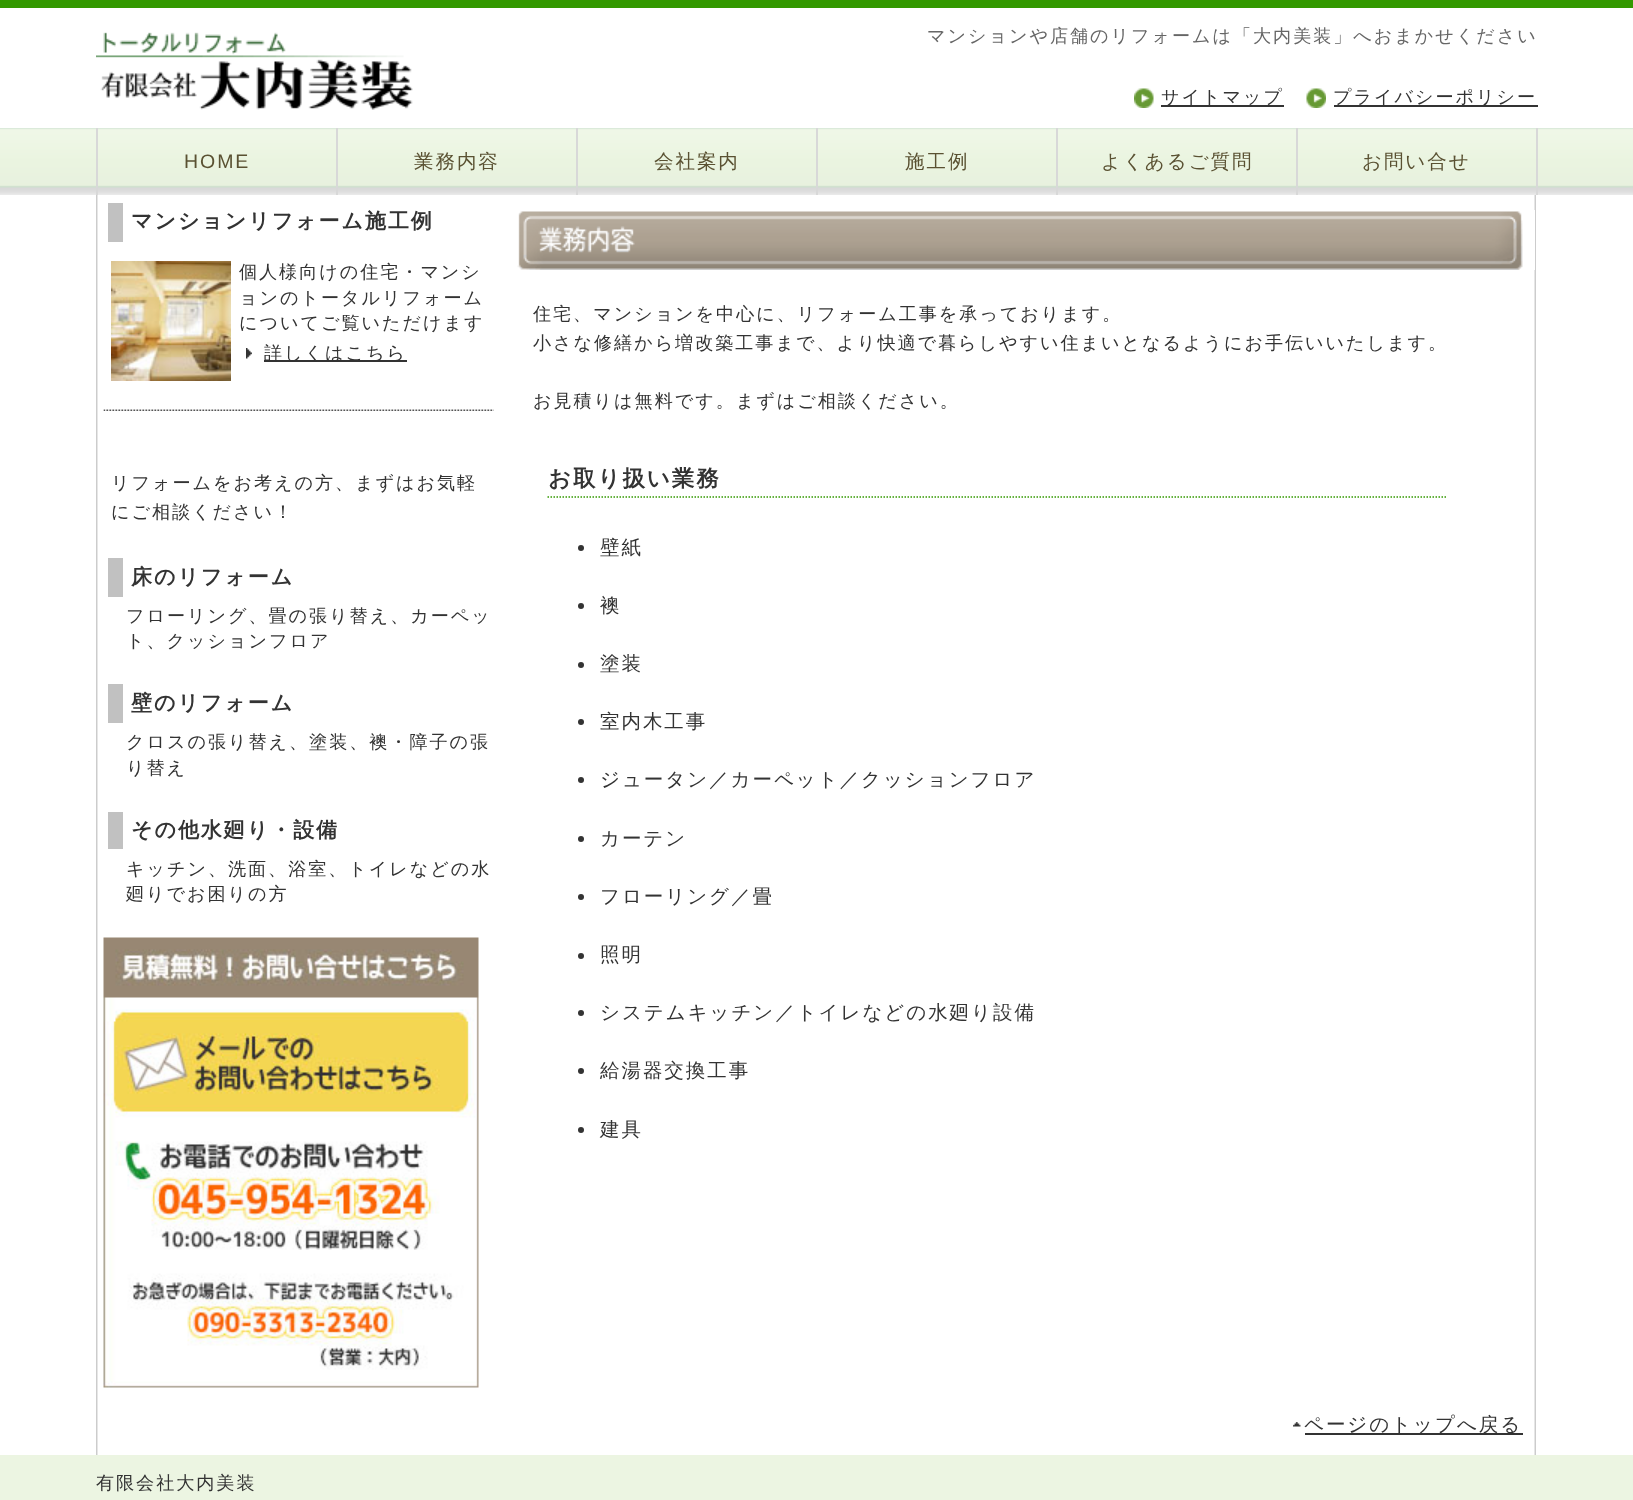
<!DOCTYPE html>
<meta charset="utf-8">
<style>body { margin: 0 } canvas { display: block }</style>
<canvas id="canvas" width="1633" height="1500"></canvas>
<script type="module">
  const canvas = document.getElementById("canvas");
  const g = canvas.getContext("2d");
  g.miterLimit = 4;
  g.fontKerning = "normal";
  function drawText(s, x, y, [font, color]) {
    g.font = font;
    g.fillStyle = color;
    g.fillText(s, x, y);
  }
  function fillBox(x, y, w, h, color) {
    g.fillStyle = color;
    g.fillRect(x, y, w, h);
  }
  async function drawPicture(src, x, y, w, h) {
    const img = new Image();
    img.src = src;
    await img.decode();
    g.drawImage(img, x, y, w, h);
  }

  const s1 = ["500 18.13px WenQuanYi Zen Hei", "#666666"];
  const s2 = ["500 18.13px WenQuanYi Zen Hei", "#333333"];
  const s3 = ["19.5px Liberation Sans", "#5A5132"];
  const s4 = ["500 19.5px WenQuanYi Zen Hei", "#5A5132"];
  const s5 = ["bold 21px WenQuanYi Zen Hei", "#333333"];
  const s6 = ["bold 22.5px WenQuanYi Zen Hei", "#333333"];
  const s7 = ["500 19.5px WenQuanYi Zen Hei", "#333333"];

  fillBox(0, 0, 1633, 1500, "#FFFFFF");
  fillBox(0, 0, 1633, 8, "#339900");
  await drawPicture("pic1.png", 96, 32, 317, 78);
  g.letterSpacing = "1.95px";
  drawText("マンションや店舗のリフォームは「大内美装」へおまかせください", 927, 42, s1);
  await drawPicture("pic2.png", 1134, 88, 20, 20);
  fillBox(1161, 105, 123, 2, "#333333");
  drawText("サイトマップ", 1161, 103, s2);
  await drawPicture("pic3.png", 1306, 88, 20, 20);
  fillBox(1334, 105, 204, 2, "#333333");
  drawText("プライバシーポリシー", 1333, 103, s2);
  await drawPicture("pic4.png", 0, 128, 1633, 67);
  fillBox(336, 128, 2, 67, "#D8D8D8");
  fillBox(96, 128, 2, 67, "#D8D8D8");
  drawText("HOME", 184, 168, s3);
  fillBox(576, 128, 2, 67, "#D8D8D8");
  drawText("業務内容", 414, 168, s4);
  fillBox(816, 128, 2, 67, "#D8D8D8");
  drawText("会社案内", 654, 168, s4);
  fillBox(1056, 128, 2, 67, "#D8D8D8");
  drawText("施工例", 905, 168, s4);
  fillBox(1296, 128, 2, 67, "#D8D8D8");
  drawText("よくあるご質問", 1101, 168, s4);
  fillBox(1536, 128, 2, 67, "#D8D8D8");
  drawText("お問い合せ", 1362, 168, s4);
  await drawPicture("pic5.png", 96, 195, 1440, 1260);
  fillBox(108, 203, 15, 39, "#C1C1C1");
  drawText("マンションリフォーム施工例", 131, 228, s5);
  await drawPicture("pic6.png", 103, 409, 391, 2);
  await drawPicture("pic7.png", 111, 261, 120, 120);
  drawText("個人様向けの住宅・マンシ", 239, 278, s2);
  drawText("ョンのトータルリフォーム", 239, 304, s2);
  drawText("についてご覧いただけます", 239, 329, s2);
  await drawPicture("pic8.png", 246, 348, 6, 11);
  fillBox(264, 360, 143, 2, "#333333");
  drawText("詳しくはこちら", 264, 359, s2);
  drawText("リフォームをお考えの方、まずはお気軽", 111, 489, s2);
  drawText("にご相談ください！", 111, 518, s2);
  fillBox(108, 558, 15, 39, "#C1C1C1");
  drawText("床のリフォーム", 131, 584, s5);
  drawText("フローリング、畳の張り替え、カーペッ", 126, 622, s2);
  drawText("ト、クッションフロア", 126, 647, s2);
  fillBox(108, 684, 15, 39, "#C1C1C1");
  drawText("壁のリフォーム", 131, 710, s5);
  drawText("クロスの張り替え、塗装、襖・障子の張", 126, 748, s2);
  drawText("り替え", 126, 774, s2);
  fillBox(108, 812, 15, 37, "#C1C1C1");
  drawText("その他水廻り・設備", 131, 837, s5);
  drawText("キッチン、洗面、浴室、トイレなどの水", 126, 875, s2);
  drawText("廻りでお困りの方", 126, 900, s2);
  await drawPicture("pic9.png", 103, 937, 376, 451);
  fillBox(1534, 210, 1, 60, "#FFFFFF");
  await drawPicture("pic10.png", 517, 211, 1006, 59);
  drawText("住宅、マンションを中心に、リフォーム工事を承っております。", 533, 320, s2);
  drawText("小さな修繕から増改築工事まで、より快適で暮らしやすい住まいとなるようにお手伝いいたします。", 533, 349, s2);
  drawText("お見積りは無料です。まずはご相談ください。", 533, 407, s2);
  g.beginPath();
  g.moveTo(547.5, 497);
  g.lineTo(1447.5, 497);
  g.strokeStyle = "#339900";
  g.lineWidth = 1.5;
  g.setLineDash([1.5, 1.5]);
  g.stroke();
  drawText("お取り扱い業務", 548, 486, s6);
  g.beginPath();
  g.arc(581, 548, 3, 0, Math.PI * 2);
  g.fill();
  drawText("壁紙", 600, 554, s7);
  g.beginPath();
  g.arc(581, 606, 3, 0, Math.PI * 2);
  g.fill();
  drawText("襖", 600, 612, s7);
  g.beginPath();
  g.arc(581, 665, 3, 0, Math.PI * 2);
  g.fill();
  drawText("塗装", 600, 670, s7);
  g.beginPath();
  g.arc(581, 722, 3, 0, Math.PI * 2);
  g.fill();
  drawText("室内木工事", 600, 728, s7);
  g.beginPath();
  g.arc(581, 780, 3, 0, Math.PI * 2);
  g.fill();
  drawText("ジュータン／カーペット／クッションフロア", 600, 786, s7);
  g.beginPath();
  g.arc(581, 839, 3, 0, Math.PI * 2);
  g.fill();
  drawText("カーテン", 600, 845, s7);
  g.beginPath();
  g.arc(581, 897, 3, 0, Math.PI * 2);
  g.fill();
  drawText("フローリング／畳", 600, 903, s7);
  g.beginPath();
  g.arc(581, 956, 3, 0, Math.PI * 2);
  g.fill();
  drawText("照明", 600, 961, s7);
  g.beginPath();
  g.arc(581, 1013, 3, 0, Math.PI * 2);
  g.fill();
  drawText("システムキッチン／トイレなどの水廻り設備", 600, 1019, s7);
  g.beginPath();
  g.arc(581, 1071, 3, 0, Math.PI * 2);
  g.fill();
  drawText("給湯器交換工事", 600, 1077, s7);
  g.beginPath();
  g.arc(581, 1130, 3, 0, Math.PI * 2);
  g.fill();
  drawText("建具", 600, 1136, s7);
  await drawPicture("pic11.png", 1293, 1422, 8, 5);
  fillBox(1305, 1433, 218, 2, "#333333");
  drawText("ページのトップへ戻る", 1304, 1431, s7);
  fillBox(0, 1455, 1633, 45, "#ECF5E2");
  drawText("有限会社大内美装", 96, 1489, s2);
</script>
